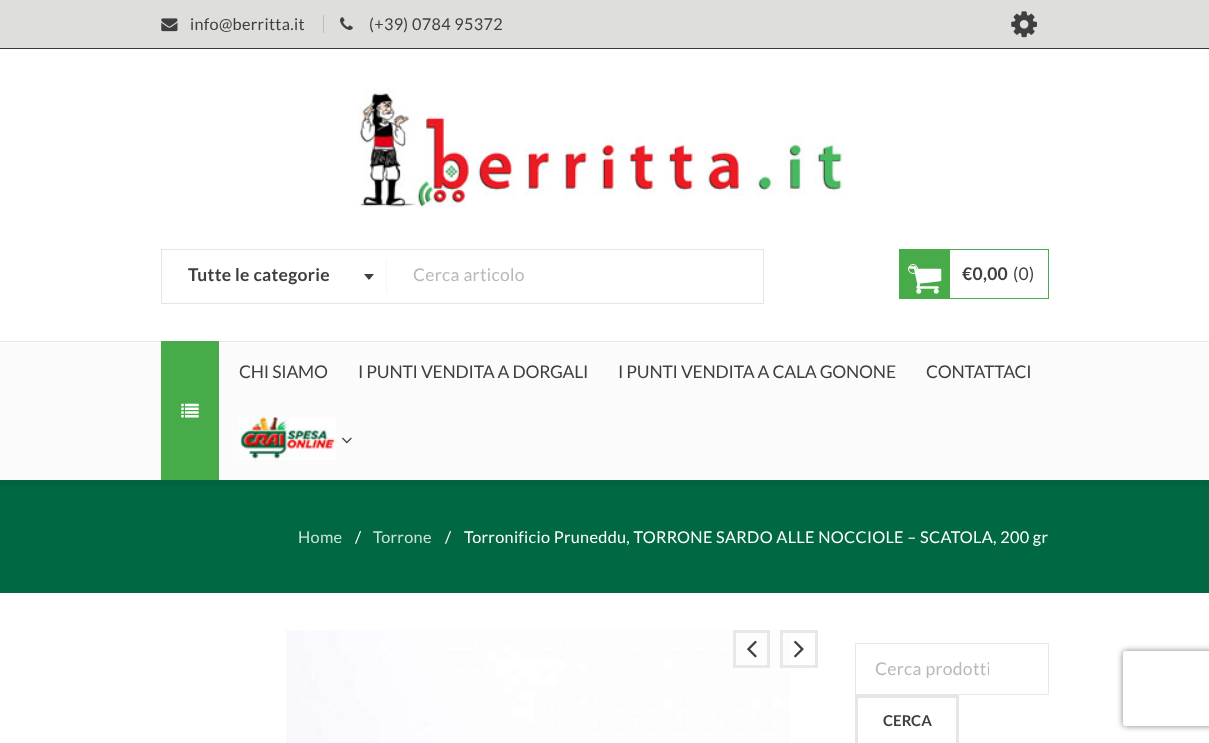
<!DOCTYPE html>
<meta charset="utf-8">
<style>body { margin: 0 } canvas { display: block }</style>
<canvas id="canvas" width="1209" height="743"></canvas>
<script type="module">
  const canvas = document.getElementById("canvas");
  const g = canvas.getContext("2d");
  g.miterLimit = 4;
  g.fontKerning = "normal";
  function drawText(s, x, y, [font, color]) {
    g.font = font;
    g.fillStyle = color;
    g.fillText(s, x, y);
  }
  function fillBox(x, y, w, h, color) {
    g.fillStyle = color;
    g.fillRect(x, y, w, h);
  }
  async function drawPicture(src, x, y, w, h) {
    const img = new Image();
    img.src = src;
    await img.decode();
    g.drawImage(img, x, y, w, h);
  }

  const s1 = ["16.25px Lato", "#3F3F3F"];
  const s2 = ["bold 17.5px Lato", "#3F3F3F"];
  const s3 = ["17.5px Lato", "#B8B8B8"];
  const s4 = ["17.5px Lato", "#3F3F3F"];
  const s5 = ["16.25px Lato", "#CCE1D9"];
  const s6 = ["16.25px Lato", "#FFFFFF"];
  const s7 = ["bold 15px Lato", "#3F3F3F"];

  fillBox(0, 0, 1209, 743, "#FFFFFF");
  fillBox(0, 0, 1209, 48, "#DEDEDC");
  fillBox(0, 48, 1209, 1, "#383838");
  await drawPicture("pic1.png", 161, 18, 17, 14);
  g.letterSpacing = "0.3px";
  drawText("info@berritta.it", 190, 30, s1);
  fillBox(323, 15, 1, 18, "#BEBEBD");
  await drawPicture("pic2.png", 340, 17, 13, 13);
  drawText("(+39) 0784 95372", 369, 30, s1);
  await drawPicture("pic3.png", 1011, 11, 26, 27);
  await drawPicture("pic4.png", 358, 88, 487, 119);
  g.strokeStyle = "#E5E5E5";
  g.strokeRect(161.5, 249.5, 602, 54);
  drawText("Tutte le categorie", 188, 281, s2);
  fillBox(386, 260, 1, 33, "#F6F6F6");
  g.fillStyle = "#3F3F3F";
  g.beginPath();
  g.moveTo(364, 274);
  g.lineTo(374, 274);
  g.lineTo(369, 280);
  g.closePath();
  g.fill();
  drawText("Cerca articolo", 413, 281, s3);
  g.strokeStyle = "#47AB49";
  g.strokeRect(899.5, 249.5, 149, 49);
  fillBox(900, 250, 50, 48, "#47AB49");
  g.beginPath();
  g.arc(913, 269, 4.5, 0, Math.PI * 2);
  g.strokeStyle = "#FFFFFF";
  g.stroke();
  await drawPicture("pic5.png", 908, 266, 34, 28);
  drawText("€0,00", 962, 280, s2);
  drawText("(0)", 1013, 280, s4);
  fillBox(0, 343, 1209, 137, "#FBFBFB");
  fillBox(0, 341, 1209, 1, "#E8E8E8");
  fillBox(161, 341, 58, 139, "#47AB49");
  await drawPicture("pic6.png", 181, 403, 18, 15);
  g.letterSpacing = "-0.2px";
  drawText("CHI SIAMO", 239, 378, s4);
  drawText("I PUNTI VENDITA A DORGALI", 358, 378, s4);
  drawText("I PUNTI VENDITA A CALA GONONE", 618, 378, s4);
  drawText("CONTATTACI", 926, 378, s4);
  await drawPicture("pic7.png", 239, 417, 97, 43);
  await drawPicture("pic8.png", 342, 437, 10, 7);
  fillBox(0, 480, 1209, 6, "#00653F");
  fillBox(0, 486, 1209, 107, "#006942");
  g.letterSpacing = "0.3px";
  drawText("Home", 298, 543, s5);
  drawText("/", 355, 543, s6);
  drawText("Torrone", 373, 543, s5);
  drawText("/", 445, 543, s6);
  drawText("Torronificio Pruneddu, TORRONE SARDO ALLE NOCCIOLE – SCATOLA, 200 gr", 464, 543, s6);
  await drawPicture("pic9.png", 286, 630, 504, 113);
  g.strokeStyle = "#E8E8E8";
  g.lineWidth = 3;
  g.strokeRect(734.5, 631.5, 34, 35);
  await drawPicture("pic10.png", 747, 640, 10, 18);
  g.strokeRect(781.5, 631.5, 35, 35);
  await drawPicture("pic11.png", 794, 640, 10, 18);
  g.lineWidth = 1;
  g.strokeRect(855.5, 643.5, 193, 51);
  g.save();
  g.beginPath();
  g.rect(875, 658, 114, 21);
  g.clip();
  drawText("Cerca prodotti", 875, 675, s3);
  g.restore();
  g.strokeStyle = "#E6E6E6";
  g.lineWidth = 3;
  g.strokeRect(856.5, 696.5, 101, 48);
  g.letterSpacing = "0px";
  drawText("CERCA", 883, 726, s7);
  g.save();
  g.beginPath();
  g.moveTo(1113, 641);
  g.lineTo(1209, 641);
  g.lineTo(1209, 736);
  g.lineTo(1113, 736);
  g.closePath();
  g.moveTo(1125.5, 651);
  g.lineTo(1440.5, 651);
  g.bezierCurveTo(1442, 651, 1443, 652, 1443, 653.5);
  g.lineTo(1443, 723.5);
  g.bezierCurveTo(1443, 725, 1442, 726, 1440.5, 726);
  g.lineTo(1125.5, 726);
  g.bezierCurveTo(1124, 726, 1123, 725, 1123, 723.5);
  g.lineTo(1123, 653.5);
  g.bezierCurveTo(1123, 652, 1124, 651, 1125.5, 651);
  g.closePath();
  g.clip("evenodd");
  g.fillStyle = "#808080";
  g.filter = "blur(3px)";
  g.beginPath();
  g.roundRect(1123, 651, 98, 75, 2.5);
  g.fill();
  g.filter = "none";
  g.restore();
</script>
